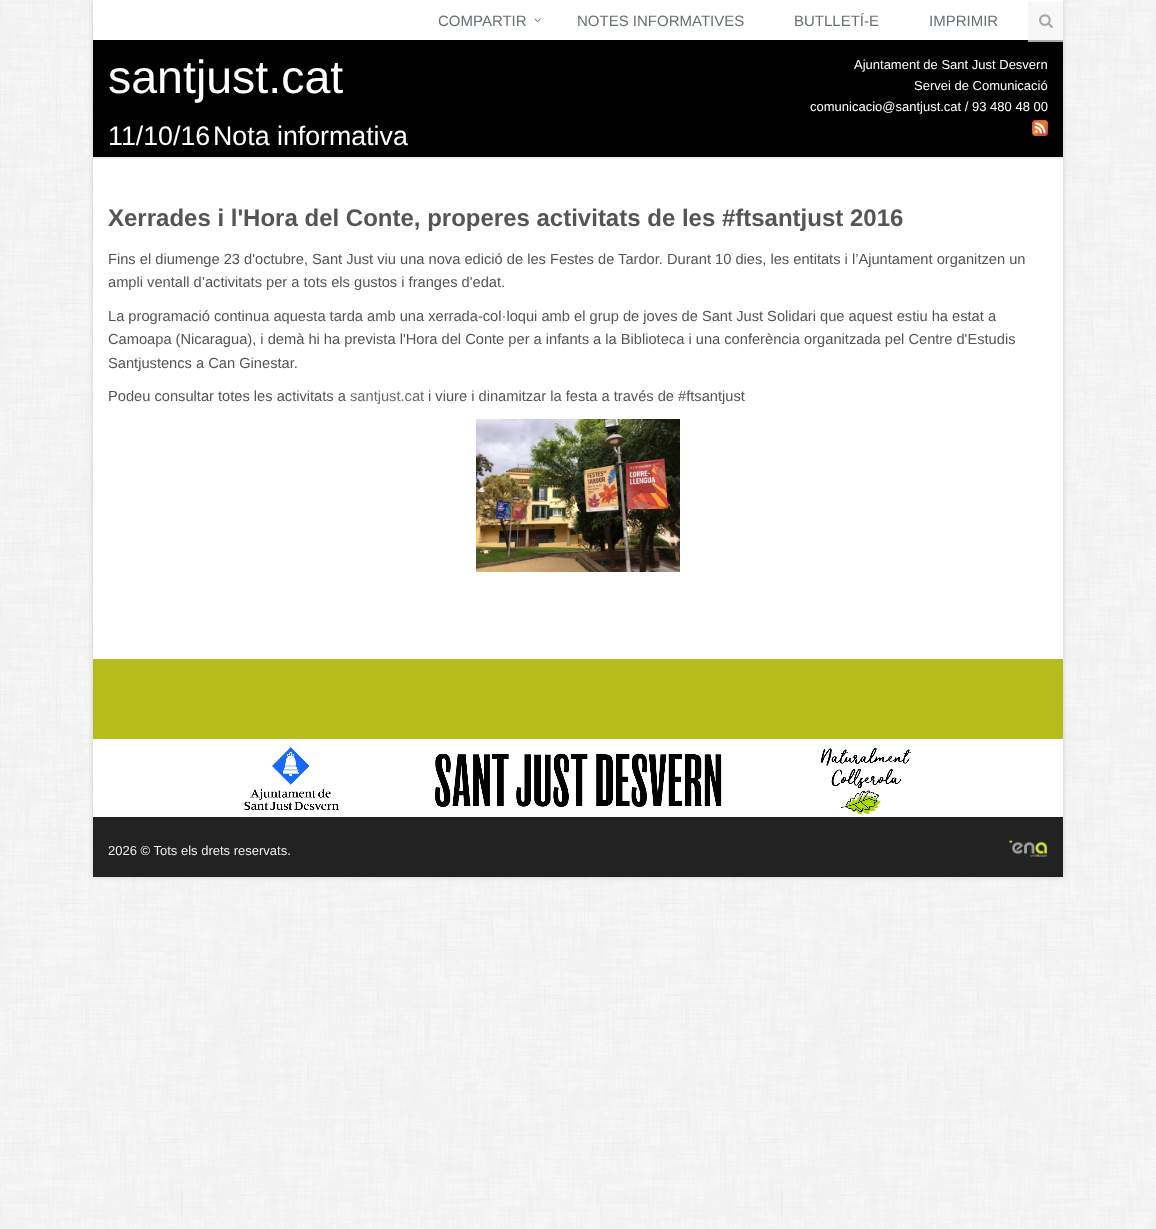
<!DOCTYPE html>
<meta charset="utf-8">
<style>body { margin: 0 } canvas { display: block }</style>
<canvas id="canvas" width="1156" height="1229"></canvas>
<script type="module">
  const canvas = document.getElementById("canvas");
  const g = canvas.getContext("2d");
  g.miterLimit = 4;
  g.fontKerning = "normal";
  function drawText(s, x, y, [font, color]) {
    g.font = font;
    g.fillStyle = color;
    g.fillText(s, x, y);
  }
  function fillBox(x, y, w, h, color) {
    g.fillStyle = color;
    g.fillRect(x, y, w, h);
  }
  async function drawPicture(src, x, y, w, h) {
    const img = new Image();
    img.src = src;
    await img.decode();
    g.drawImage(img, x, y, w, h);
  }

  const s1 = ["15px Liberation Sans", "#687074"];
  const s2 = ["46.5px Liberation Sans", "#FFFFFF"];
  const s3 = ["26.75px Liberation Sans", "#FFFFFF"];
  const s4 = ["13px Liberation Sans", "#FFFFFF"];
  const s5 = ["bold 24px Liberation Sans", "#555555"];
  const s6 = ["14.67px Liberation Sans", "#555555"];
  const s7 = ["14.67px Liberation Sans", "#6C6D67"];
  const s8 = ["13px Liberation Sans", "#EEEEEE"];

  fillBox(0, 0, 1156, 1229, "#FFFFFF");
  await drawPicture("pic1.png", 0, 0, 1156, 1229);
  g.fillStyle = "#CCCCCC";
  g.filter = "blur(2.5px)";
  g.beginPath();
  g.rect(93, 0, 970, 877);
  g.fill();
  g.filter = "none";
  fillBox(93, 0, 970, 659, "#FFFFFF");
  fillBox(93, 157, 970, 2, "#EEEEEE");
  drawText("COMPARTIR", 438, 26, s1);
  await drawPicture("pic2.png", 534, 18, 7, 5);
  drawText("NOTES INFORMATIVES", 577, 26, s1);
  drawText("BUTLLETÍ-E", 794, 26, s1);
  drawText("IMPRIMIR", 929, 26, s1);
  fillBox(1028, 2, 35, 38, "#F7F7F7");
  fillBox(93, 40, 970, 117, "#000000");
  fillBox(1028, 40, 35, 2, "#AAAAAA");
  await drawPicture("pic3.png", 1039, 14, 14, 15);
  drawText("santjust.cat", 108, 93, s2);
  drawText("11/10/16", 108, 145, s3);
  drawText("Nota informativa", 213, 145, s3);
  drawText("Ajuntament de Sant Just Desvern", 854, 69, s4);
  drawText("Servei de Comunicació", 914, 90, s4);
  drawText("comunicacio@santjust.cat / 93 480 48 00", 810, 111, s4);
  await drawPicture("pic4.png", 1032, 120, 16, 16);
  drawText("Xerrades i l'Hora del Conte, properes activitats de les #ftsantjust 2016", 108, 226, s5);
  drawText("Fins el diumenge 23 d'octubre, Sant Just viu una nova edició de les Festes de Tardor. Durant 10 dies, les entitats i l’Ajuntament organitzen un", 108, 264, s6);
  drawText("ampli ventall d’activitats per a tots els gustos i franges d'edat.", 108, 287, s6);
  drawText("La programació continua aquesta tarda amb una xerrada-col·loqui amb el grup de joves de Sant Just Solidari que aquest estiu ha estat a", 108, 321, s6);
  drawText("Camoapa (Nicaragua), i demà hi ha prevista l'Hora del Conte per a infants a la Biblioteca i una conferència organitzada pel Centre d'Estudis", 108, 344, s6);
  drawText("Santjustencs a Can Ginestar.", 108, 368, s6);
  drawText("Podeu consultar totes les activitats a", 108, 401, s6);
  drawText("santjust.cat", 350, 401, s7);
  drawText("i viure i dinamitzar la festa a través de #ftsantjust", 428, 401, s6);
  await drawPicture("pic5.png", 476, 419, 204, 153);
  fillBox(93, 739, 970, 78, "#FFFFFF");
  fillBox(93, 659, 970, 80, "#B6BD1A");
  await drawPicture("pic6.png", 244, 747, 668, 68);
  fillBox(93, 817, 970, 60, "#222222");
  drawText("2026 © Tots els drets reservats.", 108, 855, s8);
  await drawPicture("pic7.png", 1009, 839, 39, 18);
</script>
